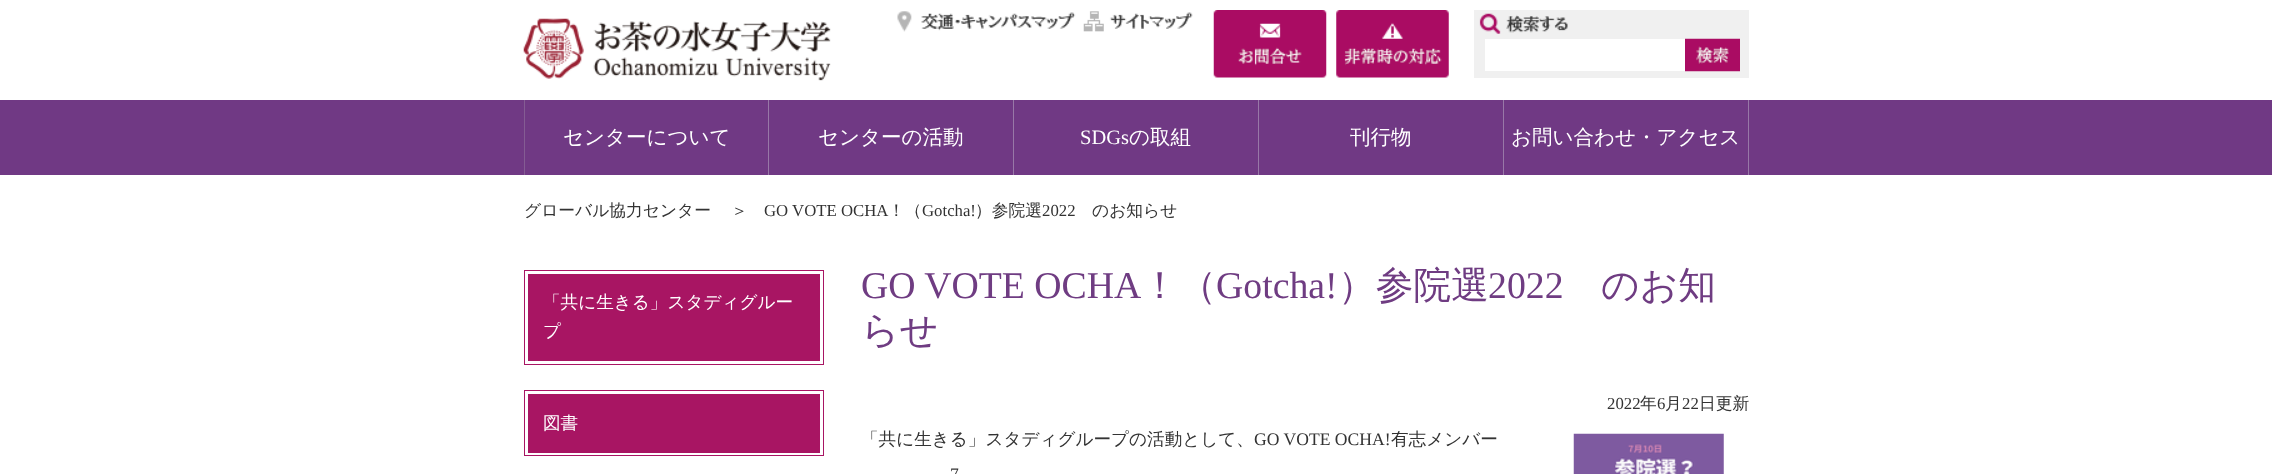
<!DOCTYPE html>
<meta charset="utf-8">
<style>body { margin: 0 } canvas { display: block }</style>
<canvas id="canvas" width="2272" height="474"></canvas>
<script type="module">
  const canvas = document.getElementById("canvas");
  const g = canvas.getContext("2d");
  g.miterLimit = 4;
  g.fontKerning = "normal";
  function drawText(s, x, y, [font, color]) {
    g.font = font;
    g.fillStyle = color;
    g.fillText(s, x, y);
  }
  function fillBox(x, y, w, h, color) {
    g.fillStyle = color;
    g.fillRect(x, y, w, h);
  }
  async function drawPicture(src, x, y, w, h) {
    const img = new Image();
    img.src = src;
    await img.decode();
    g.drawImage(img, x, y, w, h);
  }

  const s1 = ["500 20.5px WenQuanYi Zen Hei", "#FFFFFF"];
  const s2 = ["20.5px Liberation Serif", "#FFFFFF"];
  const s3 = ["500 16.75px WenQuanYi Zen Hei", "#333333"];
  const s4 = ["16.75px Liberation Serif", "#333333"];
  const s5 = ["500 17.6px WenQuanYi Zen Hei", "#FFFFFF"];
  const s6 = ["37.75px Liberation Serif", "#6F3C82"];
  const s7 = ["500 37.75px WenQuanYi Zen Hei", "#6F3C82"];
  const s8 = ["500 17.6px WenQuanYi Zen Hei", "#333333"];
  const s9 = ["17.6px Liberation Serif", "#333333"];

  fillBox(0, 0, 2272, 474, "#FFFFFF");
  await drawPicture("pic1.png", 523, 18, 308, 63);
  await drawPicture("pic2.png", 897, 11, 179, 21);
  await drawPicture("pic3.png", 1083, 11, 110, 21);
  await drawPicture("pic4.png", 1213, 10, 114, 68);
  await drawPicture("pic5.png", 1336, 10, 113, 68);
  fillBox(1474, 10, 275, 68, "#F0F0F0");
  await drawPicture("pic6.png", 1479, 13, 89, 21);
  fillBox(1485, 39, 200, 32, "#FFFFFF");
  await drawPicture("pic7.png", 1685, 38, 55, 34);
  fillBox(0, 100, 2272, 75, "#703984");
  fillBox(768, 100, 1, 75, "#9878A7");
  fillBox(524, 100, 1, 75, "#845C93");
  drawText("センターについて", 563, 144, s1);
  fillBox(1013, 100, 1, 75, "#9878A7");
  drawText("センターの活動", 818, 144, s1);
  fillBox(1258, 100, 1, 75, "#9878A7");
  drawText("SDGs", 1080, 144, s2);
  drawText("の取組", 1129, 144, s1);
  fillBox(1503, 100, 1, 75, "#9878A7");
  drawText("刊行物", 1350, 144, s1);
  fillBox(1748, 100, 1, 75, "#9878A7");
  drawText("お問い合わせ・アクセス", 1511, 144, s1);
  drawText("グローバル協力センター", 524, 216, s3);
  drawText("＞", 731, 216, s3);
  drawText("GO VOTE OCHA", 764, 216, s4);
  drawText("！（", 888, 216, s3);
  drawText("Gotcha!", 922, 216, s4);
  drawText("）参院選", 975, 216, s3);
  drawText("2022", 1042, 216, s4);
  drawText("のお知らせ", 1092, 216, s3);
  g.strokeStyle = "#A81563";
  g.strokeRect(524.5, 270.5, 299, 94);
  fillBox(528, 274, 292, 87, "#A81563");
  drawText("「共に生きる」スタディグルー", 543, 308, s5);
  drawText("プ", 543, 337, s5);
  g.strokeRect(524.5, 390.5, 299, 65);
  fillBox(528, 394, 292, 59, "#A81563");
  drawText("図書", 543, 429, s5);
  drawText("GO VOTE OCHA", 861, 298, s6);
  drawText("！（", 1141, 298, s7);
  drawText("Gotcha!", 1216, 298, s6);
  drawText("）参院選", 1338, 298, s7);
  drawText("2022", 1488, 298, s6);
  drawText("のお知", 1601, 298, s7);
  drawText("らせ", 861, 343, s7);
  drawText("2022", 1607, 409, s4);
  drawText("年", 1640, 409, s3);
  drawText("6", 1657, 409, s4);
  drawText("月", 1665, 409, s3);
  drawText("22", 1682, 409, s4);
  drawText("日更新", 1699, 409, s3);
  drawText("「共に生きる」スタディグループの活動として、", 861, 445, s8);
  drawText("GO VOTE OCHA!", 1254, 445, s9);
  drawText("有志メンバー", 1391, 445, s8);
  drawText("7", 950, 480, s9);
  await drawPicture("pic8.png", 1573, 433, 151, 41);
</script>
